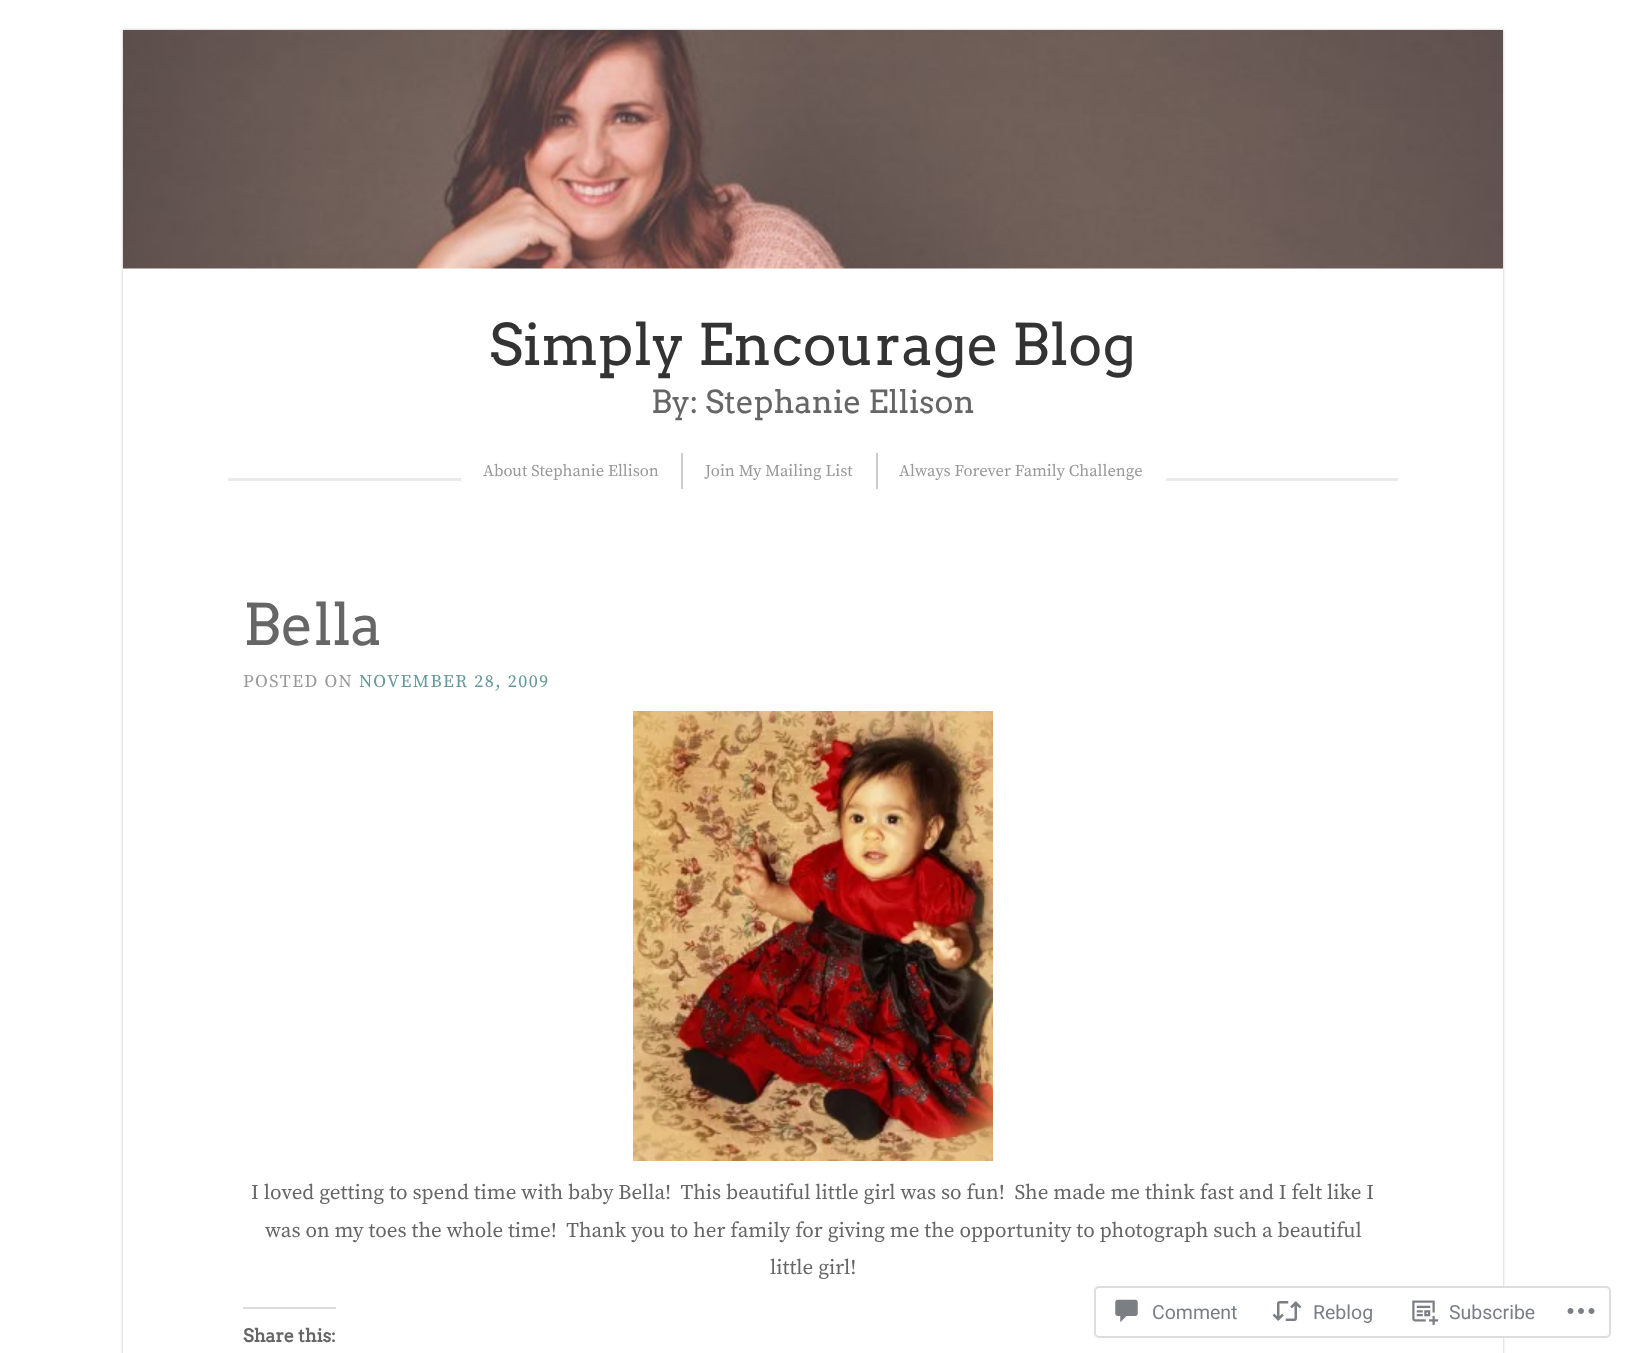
<!DOCTYPE html>
<meta charset="utf-8">
<style>body { margin: 0 } canvas { display: block }</style>
<canvas id="canvas" width="1625" height="1353"></canvas>
<script type="module">
  const canvas = document.getElementById("canvas");
  const g = canvas.getContext("2d");
  g.miterLimit = 4;
  g.fontKerning = "normal";
  function drawText(s, x, y, [font, color]) {
    g.font = font;
    g.fillStyle = color;
    g.fillText(s, x, y);
  }
  function fillBox(x, y, w, h, color) {
    g.fillStyle = color;
    g.fillRect(x, y, w, h);
  }
  async function drawPicture(src, x, y, w, h) {
    const img = new Image();
    img.src = src;
    await img.decode();
    g.drawImage(img, x, y, w, h);
  }

  const s1 = ["57.25px Arvo", "#333333"];
  const s2 = ["31.75px Arvo", "#666666"];
  const s3 = ["16.5px Source Serif Pro", "#999999"];
  const s4 = ["57.25px Arvo", "#666666"];
  const s5 = ["18px Source Serif Pro", "#999999"];
  const s6 = ["18px Source Serif Pro", "#669999"];
  const s7 = ["21px Source Serif Pro", "#666666"];
  const s8 = ["bold 18px Arvo", "#666666"];
  const s9 = ["19.5px Roboto", "#7B7F85"];

  fillBox(0, 0, 1625, 1353, "#FFFFFF");
  g.save();
  g.beginPath();
  g.moveTo(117, 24);
  g.lineTo(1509, 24);
  g.lineTo(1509, 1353);
  g.lineTo(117, 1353);
  g.closePath();
  g.moveTo(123, 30);
  g.lineTo(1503, 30);
  g.lineTo(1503, 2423);
  g.lineTo(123, 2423);
  g.closePath();
  g.clip("evenodd");
  g.fillStyle = "#BBBBBB";
  g.filter = "blur(1.5px)";
  g.beginPath();
  g.rect(123, 30, 1380, 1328);
  g.fill();
  g.filter = "none";
  g.restore();
  await drawPicture("pic1.png", 123, 30, 1380, 239);
  drawText("Simply Encourage Blog", 489, 365, s1);
  drawText("By: Stephanie Ellison", 651, 413, s2);
  fillBox(228, 478, 1170, 3, "#EAEAEA");
  fillBox(461, 478, 705, 3, "#FFFFFF");
  drawText("About Stephanie Ellison", 483, 476, s3);
  fillBox(681, 453, 2, 36, "#CCCCCC");
  drawText("Join My Mailing List", 705, 476, s3);
  fillBox(876, 453, 2, 36, "#CCCCCC");
  drawText("Always Forever Family Challenge", 899, 476, s3);
  drawText("Bella", 243, 645, s4);
  g.letterSpacing = "1.5px";
  drawText("POSTED ON", 243, 687, s5);
  drawText("NOVEMBER 28, 2009", 359, 687, s6);
  await drawPicture("pic2.png", 633, 711, 360, 450);
  g.letterSpacing = "0px";
  drawText("I loved getting to spend time with baby Bella!  This beautiful little girl was so fun!  She made me think fast and I felt like I", 251, 1199, s7);
  drawText("was on my toes the whole time!  Thank you to her family for giving me the opportunity to photograph such a beautiful", 265, 1237, s7);
  drawText("little girl!", 770, 1274, s7);
  fillBox(243, 1307, 93, 2, "#DCDCDE");
  drawText("Share this:", 243, 1342, s8);
  g.fillStyle = "rgba(255, 255, 255, 0.98)";
  g.beginPath();
  g.roundRect(1095, 1287, 515, 50, 4);
  g.fill();
  g.strokeStyle = "#DDDDDF";
  g.lineWidth = 2;
  g.stroke();
  await drawPicture("pic3.png", 1115, 1299, 23, 24);
  drawText("Comment", 1152, 1319, s9);
  await drawPicture("pic4.png", 1272, 1301, 30, 20);
  drawText("Reblog", 1313, 1319, s9);
  await drawPicture("pic5.png", 1412, 1300, 27, 25);
  drawText("Subscribe", 1449, 1319, s9);
  await drawPicture("pic6.png", 1567, 1308, 28, 6);
</script>
